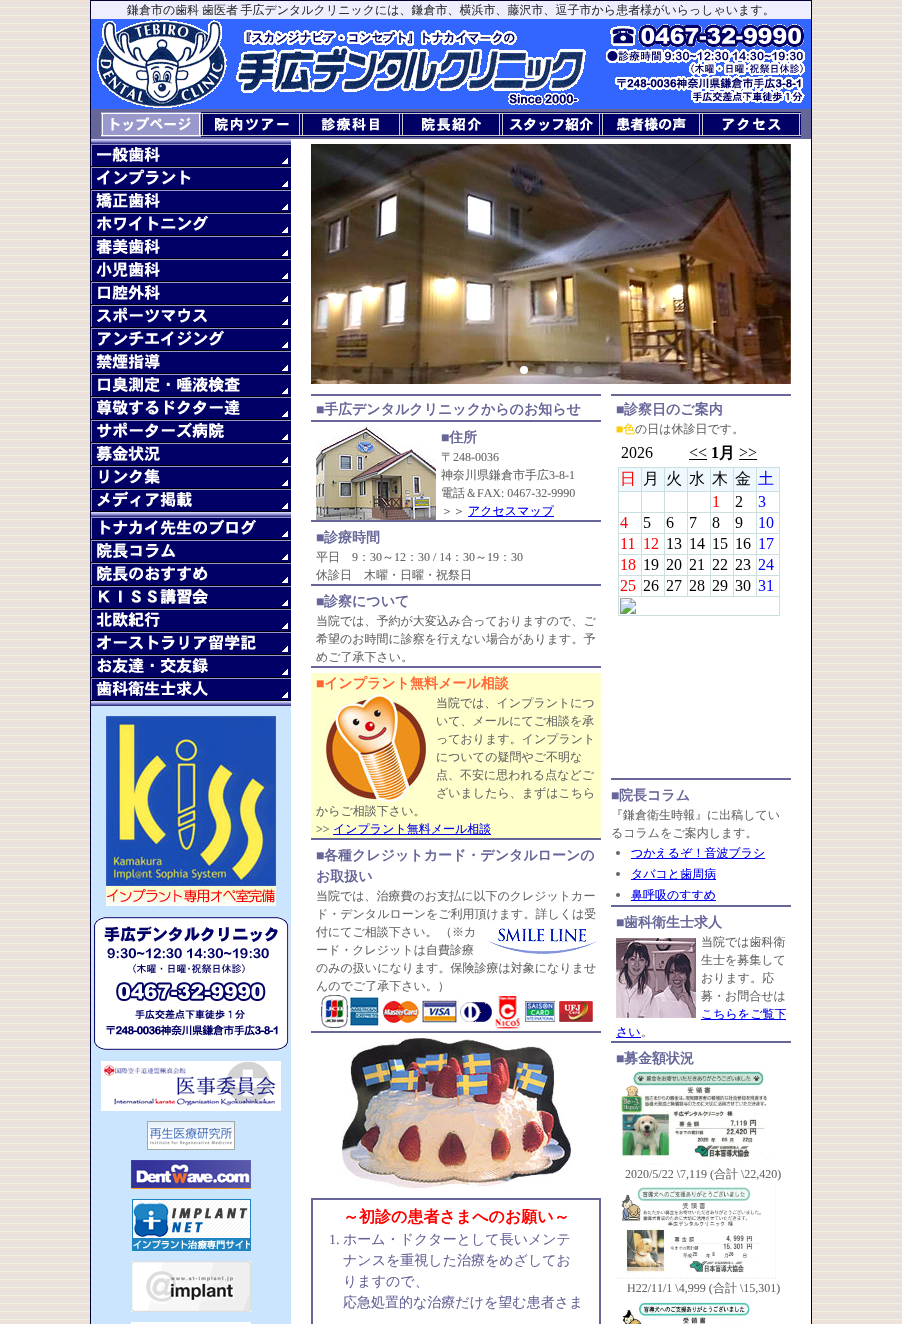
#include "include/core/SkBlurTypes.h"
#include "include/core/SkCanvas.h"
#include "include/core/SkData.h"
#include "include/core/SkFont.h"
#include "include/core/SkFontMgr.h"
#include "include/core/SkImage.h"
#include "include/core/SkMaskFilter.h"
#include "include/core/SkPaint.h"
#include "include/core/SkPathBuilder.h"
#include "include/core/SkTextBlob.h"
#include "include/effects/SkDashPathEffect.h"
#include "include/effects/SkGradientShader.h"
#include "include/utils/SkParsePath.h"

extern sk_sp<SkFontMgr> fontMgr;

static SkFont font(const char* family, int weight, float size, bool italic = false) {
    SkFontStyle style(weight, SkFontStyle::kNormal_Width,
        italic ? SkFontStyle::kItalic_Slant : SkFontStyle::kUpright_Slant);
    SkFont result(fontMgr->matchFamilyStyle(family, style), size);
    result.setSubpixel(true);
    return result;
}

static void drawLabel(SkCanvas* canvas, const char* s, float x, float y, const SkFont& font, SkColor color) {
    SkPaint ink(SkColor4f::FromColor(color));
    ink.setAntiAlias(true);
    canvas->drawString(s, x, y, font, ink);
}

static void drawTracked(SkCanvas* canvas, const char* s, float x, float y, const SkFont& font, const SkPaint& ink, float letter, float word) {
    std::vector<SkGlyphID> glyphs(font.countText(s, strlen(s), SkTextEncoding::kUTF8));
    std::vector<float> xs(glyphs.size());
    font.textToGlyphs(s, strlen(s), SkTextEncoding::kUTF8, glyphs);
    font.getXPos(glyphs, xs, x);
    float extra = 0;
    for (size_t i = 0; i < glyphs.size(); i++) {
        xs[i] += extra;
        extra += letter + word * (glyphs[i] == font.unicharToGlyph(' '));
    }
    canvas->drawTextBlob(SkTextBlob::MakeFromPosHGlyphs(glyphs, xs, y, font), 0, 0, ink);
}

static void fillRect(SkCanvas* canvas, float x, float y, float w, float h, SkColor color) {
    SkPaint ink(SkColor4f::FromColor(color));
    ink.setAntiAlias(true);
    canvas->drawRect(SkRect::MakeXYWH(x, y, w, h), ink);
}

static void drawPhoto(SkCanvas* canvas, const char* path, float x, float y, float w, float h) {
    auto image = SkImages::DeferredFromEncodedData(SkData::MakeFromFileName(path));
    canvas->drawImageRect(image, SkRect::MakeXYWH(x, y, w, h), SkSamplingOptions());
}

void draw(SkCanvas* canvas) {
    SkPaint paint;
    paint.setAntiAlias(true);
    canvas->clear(0xFFFFFFFF);
    drawPhoto(canvas, "assets/img1.png", 0, 0, 902, 1324);
    fillRect(canvas, 291, 139, 520, 1185, 0xFFFFFFFF);
    paint.setStroke(true);
    paint.setStrokeWidth(1);
    paint.setColor(0xFF000033);
    canvas->drawRect(SkRect::MakeXYWH(90.5f, 0.5f, 721, 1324), paint);
    fillRect(canvas, 91, 19, 720, 90, 0xFF3366FF);
    fillRect(canvas, 91, 1, 720, 18, 0xFFEEEEFF);
    SkFont font1 = font("WenQuanYi Zen Hei", 500, 12);
    paint.setStroke(false);
    paint.setColor(0xFF333333);
    drawTracked(canvas, "鎌倉市の歯科 歯医者 手広デンタルクリニックには、鎌倉市、横浜市、藤沢市、逗子市から患者様がいらっしゃいます。", 127, 14, font1, paint, 0, -1);
    drawPhoto(canvas, "assets/img2.png", 97, 20, 489, 88);
    drawPhoto(canvas, "assets/img3.png", 610, 24, 194, 23);
    drawPhoto(canvas, "assets/img4.png", 606, 49, 199, 54);
    fillRect(canvas, 91, 109, 720, 30, 0xFF666699);
    drawPhoto(canvas, "assets/img5.png", 101, 112, 100, 25);
    drawPhoto(canvas, "assets/img6.png", 201, 112, 100, 25);
    drawPhoto(canvas, "assets/img7.png", 301, 112, 100, 25);
    drawPhoto(canvas, "assets/img8.png", 401, 112, 100, 25);
    drawPhoto(canvas, "assets/img9.png", 501, 112, 100, 25);
    drawPhoto(canvas, "assets/img10.png", 601, 112, 100, 25);
    drawPhoto(canvas, "assets/img11.png", 701, 112, 100, 25);
    fillRect(canvas, 91, 706, 200, 618, 0xFFCCE5FF);
    drawPhoto(canvas, "assets/img12.png", 91, 139, 200, 5);
    drawPhoto(canvas, "assets/img13.png", 91, 144, 200, 23);
    drawPhoto(canvas, "assets/img14.png", 91, 167, 200, 23);
    drawPhoto(canvas, "assets/img15.png", 91, 190, 200, 23);
    drawPhoto(canvas, "assets/img16.png", 91, 213, 200, 23);
    drawPhoto(canvas, "assets/img17.png", 91, 236, 200, 23);
    drawPhoto(canvas, "assets/img18.png", 91, 259, 200, 23);
    drawPhoto(canvas, "assets/img19.png", 91, 282, 200, 23);
    drawPhoto(canvas, "assets/img20.png", 91, 305, 200, 23);
    drawPhoto(canvas, "assets/img21.png", 91, 328, 200, 23);
    drawPhoto(canvas, "assets/img22.png", 91, 351, 200, 23);
    drawPhoto(canvas, "assets/img23.png", 91, 374, 200, 23);
    drawPhoto(canvas, "assets/img24.png", 91, 397, 200, 23);
    drawPhoto(canvas, "assets/img25.png", 91, 420, 200, 23);
    drawPhoto(canvas, "assets/img26.png", 91, 443, 200, 23);
    drawPhoto(canvas, "assets/img27.png", 91, 466, 200, 23);
    drawPhoto(canvas, "assets/img28.png", 91, 489, 200, 23);
    drawPhoto(canvas, "assets/img12.png", 91, 512, 200, 5);
    drawPhoto(canvas, "assets/img29.png", 91, 517, 200, 23);
    drawPhoto(canvas, "assets/img30.png", 91, 540, 200, 23);
    drawPhoto(canvas, "assets/img31.png", 91, 563, 200, 23);
    drawPhoto(canvas, "assets/img32.png", 91, 586, 200, 23);
    drawPhoto(canvas, "assets/img33.png", 91, 609, 200, 23);
    drawPhoto(canvas, "assets/img34.png", 91, 632, 200, 23);
    drawPhoto(canvas, "assets/img35.png", 91, 655, 200, 23);
    drawPhoto(canvas, "assets/img36.png", 91, 678, 200, 23);
    drawPhoto(canvas, "assets/img12.png", 91, 701, 200, 5);
    drawPhoto(canvas, "assets/img37.png", 106, 716, 170, 190);
    drawPhoto(canvas, "assets/img38.png", 94, 917, 195, 133);
    drawPhoto(canvas, "assets/img39.png", 101, 1061, 180, 50);
    drawPhoto(canvas, "assets/img40.png", 147, 1121, 88, 29);
    drawPhoto(canvas, "assets/img41.png", 131, 1160, 120, 29);
    drawPhoto(canvas, "assets/img42.png", 132, 1199, 119, 52);
    drawPhoto(canvas, "assets/img43.png", 131, 1261, 120, 51);
    fillRect(canvas, 131, 1322, 120, 2, 0xFFFFFFFF);
    drawPhoto(canvas, "assets/img44.png", 311, 144, 480, 240);
    paint.setColor(0xFFFFFFFF);
    canvas->drawCircle(524, 370, 4, paint);
    paint.setColor(0x33FFFFFF);
    canvas->drawCircle(542, 370, 4, paint);
    canvas->drawCircle(560, 370, 4, paint);
    canvas->drawCircle(578, 370, 4, paint);
    fillRect(canvas, 311, 394, 290, 2, 0xFF666699);
    fillRect(canvas, 311, 420, 290, 2, 0xFF666699);
    SkFont font2 = font("Liberation Serif", 700, 14);
    drawLabel(canvas, "■", 316, 414, font2, 0xFF666699);
    SkFont font3 = font("WenQuanYi Zen Hei", 700, 14);
    drawLabel(canvas, "手広デンタルクリニックからのお知らせ", 324, 414, font3, 0xFF666699);
    fillRect(canvas, 311, 520, 290, 2, 0xFF666699);
    drawPhoto(canvas, "assets/img45.png", 316, 427, 120, 93);
    drawLabel(canvas, "■", 441, 442, font2, 0xFF666699);
    drawLabel(canvas, "住所", 449, 442, font3, 0xFF666699);
    drawLabel(canvas, "〒", 441, 461, font1, 0xFF666666);
    SkFont font4 = font("Liberation Serif", 400, 12);
    drawLabel(canvas, "248-0036", 453, 461, font4, 0xFF666666);
    drawLabel(canvas, "神奈川県鎌倉市手広", 441, 479, font1, 0xFF666666);
    drawLabel(canvas, "3-8-1", 549, 479, font4, 0xFF666666);
    drawLabel(canvas, "電話＆", 441, 497, font1, 0xFF666666);
    drawLabel(canvas, "FAX: 0467-32-9990", 477, 497, font4, 0xFF666666);
    drawLabel(canvas, "＞＞", 441, 515, font1, 0xFF666666);
    fillRect(canvas, 468, 516, 86, 1, 0xFF0000EE);
    drawLabel(canvas, "アクセスマップ", 468, 515, font1, 0xFF0000EE);
    fillRect(canvas, 311, 584, 290, 2, 0xFF666699);
    drawLabel(canvas, "■", 316, 542, font2, 0xFF666699);
    drawLabel(canvas, "診療時間", 324, 542, font3, 0xFF666699);
    drawLabel(canvas, "平日", 316, 561, font1, 0xFF666666);
    drawLabel(canvas, "9", 352, 561, font4, 0xFF666666);
    drawLabel(canvas, "：", 358, 561, font1, 0xFF666666);
    drawLabel(canvas, "30", 370, 561, font4, 0xFF666666);
    drawLabel(canvas, "～", 382, 561, font1, 0xFF666666);
    drawLabel(canvas, "12", 394, 561, font4, 0xFF666666);
    drawLabel(canvas, "：", 406, 561, font1, 0xFF666666);
    drawLabel(canvas, "30 / 14", 418, 561, font4, 0xFF666666);
    drawLabel(canvas, "：", 451, 561, font1, 0xFF666666);
    drawLabel(canvas, "30", 463, 561, font4, 0xFF666666);
    drawLabel(canvas, "～", 475, 561, font1, 0xFF666666);
    drawLabel(canvas, "19", 487, 561, font4, 0xFF666666);
    drawLabel(canvas, "：", 499, 561, font1, 0xFF666666);
    drawLabel(canvas, "30", 511, 561, font4, 0xFF666666);
    drawLabel(canvas, "休診日　木曜・日曜・祝祭日", 316, 579, font1, 0xFF666666);
    fillRect(canvas, 311, 666, 290, 2, 0xFF666699);
    drawLabel(canvas, "■", 316, 606, font2, 0xFF666699);
    drawLabel(canvas, "診察について", 324, 606, font3, 0xFF666699);
    drawLabel(canvas, "当院では、予約が大変込み合っておりますので、ご", 316, 625, font1, 0xFF666666);
    drawLabel(canvas, "希望のお時間に診察を行えない場合があります。予", 316, 643, font1, 0xFF666666);
    drawLabel(canvas, "めご了承下さい。", 316, 661, font1, 0xFF666666);
    fillRect(canvas, 311, 673, 290, 165, 0xFFFFFFCC);
    fillRect(canvas, 311, 838, 290, 2, 0xFF666699);
    drawLabel(canvas, "■", 316, 688, font2, 0xFFFF6633);
    drawLabel(canvas, "インプラント無料メール相談", 324, 688, font3, 0xFFFF6633);
    drawPhoto(canvas, "assets/img46.png", 326, 694, 100, 108);
    drawLabel(canvas, "当院では、インプラントにつ", 436, 707, font1, 0xFF666666);
    drawLabel(canvas, "いて、メールにてご相談を承", 436, 725, font1, 0xFF666666);
    drawLabel(canvas, "っております。インプラント", 436, 743, font1, 0xFF666666);
    drawLabel(canvas, "についての疑問やご不明な", 436, 761, font1, 0xFF666666);
    drawLabel(canvas, "点、不安に思われる点などご", 436, 779, font1, 0xFF666666);
    drawLabel(canvas, "ざいましたら、まずはこちら", 436, 797, font1, 0xFF666666);
    drawLabel(canvas, "からご相談下さい。", 316, 815, font1, 0xFF666666);
    drawLabel(canvas, ">>", 316, 833, font4, 0xFF666666);
    fillRect(canvas, 333, 834, 158, 1, 0xFF0000EE);
    drawLabel(canvas, "インプラント無料メール相談", 333, 833, font1, 0xFF0000EE);
    fillRect(canvas, 311, 1031, 290, 2, 0xFF666699);
    drawLabel(canvas, "■", 316, 860, font2, 0xFF666699);
    drawLabel(canvas, "各種クレジットカード・デンタルローンの", 324, 860, font3, 0xFF666699);
    drawLabel(canvas, "お取扱い", 316, 881, font3, 0xFF666699);
    drawLabel(canvas, "当院では、治療費のお支払に以下のクレジットカー", 316, 900, font1, 0xFF666666);
    drawLabel(canvas, "ド・デンタルローンをご利用頂けます。詳しくは受", 316, 918, font1, 0xFF666666);
    drawLabel(canvas, "付にてご相談下さい。", 316, 936, font1, 0xFF666666);
    drawLabel(canvas, "（※カ", 440, 936, font1, 0xFF666666);
    drawPhoto(canvas, "assets/img47.png", 488, 928, 109, 26);
    drawLabel(canvas, "ード・クレジットは自費診療", 316, 954, font1, 0xFF666666);
    drawLabel(canvas, "のみの扱いになります。保険診療は対象になりませ", 316, 972, font1, 0xFF666666);
    drawLabel(canvas, "んのでご了承下さい。）", 316, 990, font1, 0xFF666666);
    drawPhoto(canvas, "assets/img48.png", 321, 995, 272, 34);
    drawPhoto(canvas, "assets/img49.png", 342, 1038, 229, 150);
    paint.setStroke(true);
    paint.setStrokeWidth(2);
    paint.setColor(0xFF666699);
    canvas->drawRect(SkRect::MakeXYWH(312, 1199, 288, 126), paint);
    SkFont font5 = font("WenQuanYi Zen Hei", 700, 16);
    drawLabel(canvas, "～初診の患者さまへのお願い～", 343, 1222, font5, 0xFFFF0000);
    SkFont font6 = font("Liberation Serif", 400, 14);
    drawLabel(canvas, "1.", 329, 1244, font6, 0xFF666699);
    SkFont font7 = font("WenQuanYi Zen Hei", 500, 14);
    drawLabel(canvas, "ホーム・ドクターとして長いメンテ", 343, 1244, font7, 0xFF666699);
    drawLabel(canvas, "ナンスを重視した治療をめざしてお", 343, 1265, font7, 0xFF666699);
    drawLabel(canvas, "りますので、", 343, 1286, font7, 0xFF666699);
    drawLabel(canvas, "応急処置的な治療だけを望む患者さま", 343, 1307, font7, 0xFF666699);
    fillRect(canvas, 611, 394, 180, 2, 0xFF666699);
    fillRect(canvas, 611, 778, 180, 2, 0xFF666699);
    drawLabel(canvas, "■", 616, 414, font2, 0xFF666699);
    drawLabel(canvas, "診察日のご案内", 624, 414, font3, 0xFF666699);
    drawLabel(canvas, "■", 616, 433, font4, 0xFFFFCC00);
    drawLabel(canvas, "色", 623, 433, font1, 0xFFFFCC00);
    drawLabel(canvas, "の日は休診日です。", 635, 433, font1, 0xFF666666);
    drawPhoto(canvas, "assets/img50.png", 618, 445, 162, 171);
    drawLabel(canvas, "■", 611, 800, font2, 0xFF666699);
    drawLabel(canvas, "院長コラム", 619, 800, font3, 0xFF666699);
    drawLabel(canvas, "『鎌倉衛生時報』に出稿してい", 611, 819, font1, 0xFF666666);
    drawLabel(canvas, "るコラムをご案内します。", 611, 837, font1, 0xFF666666);
    fillRect(canvas, 611, 905, 180, 2, 0xFF666699);
    paint.setStroke(false);
    paint.setColor(0xFF666666);
    canvas->drawCircle(618, 853, 2, paint);
    fillRect(canvas, 631, 858, 134, 1, 0xFF0000EE);
    drawLabel(canvas, "つかえるぞ！音波ブラシ", 631, 857, font1, 0xFF0000EE);
    canvas->drawCircle(618, 874, 2, paint);
    fillRect(canvas, 631, 879, 85, 1, 0xFF0000EE);
    drawLabel(canvas, "タバコと歯周病", 631, 878, font1, 0xFF0000EE);
    canvas->drawCircle(618, 895, 2, paint);
    fillRect(canvas, 631, 900, 85, 1, 0xFF0000EE);
    drawLabel(canvas, "鼻呼吸のすすめ", 631, 899, font1, 0xFF0000EE);
    fillRect(canvas, 611, 1041, 180, 2, 0xFF666699);
    drawLabel(canvas, "■", 616, 927, font2, 0xFF666699);
    drawLabel(canvas, "歯科衛生士求人", 624, 927, font3, 0xFF666699);
    drawPhoto(canvas, "assets/img51.png", 616, 938, 80, 80);
    drawLabel(canvas, "当院では歯科衛", 701, 946, font1, 0xFF666666);
    drawLabel(canvas, "生士を募集して", 701, 964, font1, 0xFF666666);
    drawLabel(canvas, "おります。応", 701, 982, font1, 0xFF666666);
    drawLabel(canvas, "募・お問合せは", 701, 1000, font1, 0xFF666666);
    fillRect(canvas, 701, 1019, 85, 1, 0xFF0000EE);
    drawLabel(canvas, "こちらをご覧下", 701, 1018, font1, 0xFF0000EE);
    fillRect(canvas, 616, 1037, 25, 1, 0xFF0000EE);
    drawLabel(canvas, "さい", 616, 1036, font1, 0xFF0000EE);
    drawLabel(canvas, "。", 641, 1036, font1, 0xFF666666);
    drawLabel(canvas, "■", 616, 1063, font2, 0xFF666699);
    drawLabel(canvas, "募金額状況", 624, 1063, font3, 0xFF666699);
    drawPhoto(canvas, "assets/img52.png", 620, 1069, 153, 96);
    drawLabel(canvas, "2020/5/22 \\7,119 (", 625, 1178, font4, 0xFF666666);
    drawLabel(canvas, "合計", 714, 1178, font1, 0xFF666666);
    drawLabel(canvas, "\\22,420)", 741, 1178, font4, 0xFF666666);
    drawPhoto(canvas, "assets/img53.png", 616, 1183, 160, 96);
    drawLabel(canvas, "H22/11/1 \\4,999 (", 627, 1292, font4, 0xFF666666);
    drawLabel(canvas, "合計", 713, 1292, font1, 0xFF666666);
    drawLabel(canvas, "\\15,301)", 740, 1292, font4, 0xFF666666);
    drawPhoto(canvas, "assets/img54.png", 621, 1302, 131, 22);
}
